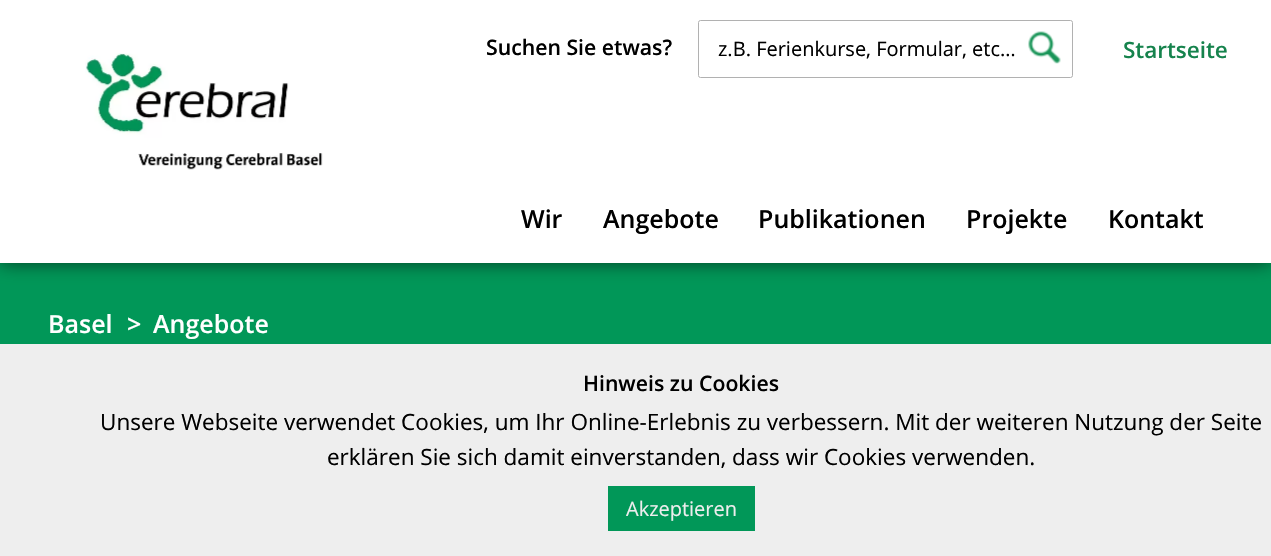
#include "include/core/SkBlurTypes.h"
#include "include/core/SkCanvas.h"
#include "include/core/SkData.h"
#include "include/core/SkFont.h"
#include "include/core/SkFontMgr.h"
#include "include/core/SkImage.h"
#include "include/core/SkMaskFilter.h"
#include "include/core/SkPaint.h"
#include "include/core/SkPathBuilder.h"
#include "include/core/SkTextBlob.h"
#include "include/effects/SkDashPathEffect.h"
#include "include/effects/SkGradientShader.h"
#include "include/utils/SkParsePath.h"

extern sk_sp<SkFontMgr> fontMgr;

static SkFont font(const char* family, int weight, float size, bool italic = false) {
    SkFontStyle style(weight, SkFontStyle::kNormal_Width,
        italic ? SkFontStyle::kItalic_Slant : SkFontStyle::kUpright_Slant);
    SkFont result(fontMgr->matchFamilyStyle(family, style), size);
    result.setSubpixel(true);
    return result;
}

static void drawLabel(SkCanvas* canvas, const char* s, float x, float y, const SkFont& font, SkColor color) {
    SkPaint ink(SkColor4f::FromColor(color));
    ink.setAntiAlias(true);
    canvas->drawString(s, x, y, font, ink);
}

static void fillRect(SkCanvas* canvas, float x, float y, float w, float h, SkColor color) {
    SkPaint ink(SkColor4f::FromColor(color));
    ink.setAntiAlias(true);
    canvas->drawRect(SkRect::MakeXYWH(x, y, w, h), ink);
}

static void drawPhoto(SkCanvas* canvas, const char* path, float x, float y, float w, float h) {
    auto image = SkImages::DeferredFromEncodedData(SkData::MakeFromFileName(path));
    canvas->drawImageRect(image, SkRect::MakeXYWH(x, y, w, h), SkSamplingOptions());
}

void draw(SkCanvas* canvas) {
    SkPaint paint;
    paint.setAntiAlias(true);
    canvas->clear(0xFF019758);
    paint.setColor(0x99000000);
    paint.setMaskFilter(SkMaskFilter::MakeBlur(kNormal_SkBlurStyle, 9));
    canvas->drawRect(SkRect::MakeXYWH(0, 0, 1271, 263), paint);
    paint.setMaskFilter(nullptr);
    fillRect(canvas, 0, 0, 1271, 263, 0xFFFFFFFF);
    SkFont font1 = font("Open Sans", 600, 21.25f);
    drawLabel(canvas, "Suchen Sie etwas?", 486, 55, font1, 0xFF000000);
    paint.setStroke(true);
    paint.setStrokeWidth(1);
    paint.setColor(0xFFB1B1B1);
    canvas->drawRoundRect(SkRect::MakeXYWH(698.5f, 20.5f, 374, 57), 2, 2, paint);
    SkFont font2 = font("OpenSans", 400, 20);
    drawLabel(canvas, "z.B. Ferienkurse, Formular, etc…", 718, 56, font2, 0xFF000000);
    drawPhoto(canvas, "assets/img1.png", 1028, 31, 33, 33);
    SkFont font3 = font("Open Sans", 600, 22.5f);
    drawLabel(canvas, "Startseite", 1123, 58, font3, 0xFF16834D);
    drawPhoto(canvas, "assets/img2.png", 85, 53, 238, 117);
    SkFont font4 = font("Open Sans", 600, 25);
    drawLabel(canvas, "Wir", 521, 228, font4, 0xFF000000);
    drawLabel(canvas, "Angebote", 603, 228, font4, 0xFF000000);
    drawLabel(canvas, "Publikationen", 758, 228, font4, 0xFF000000);
    drawLabel(canvas, "Projekte", 966, 228, font4, 0xFF000000);
    drawLabel(canvas, "Kontakt", 1108, 228, font4, 0xFF000000);
    drawLabel(canvas, "Basel", 48, 333, font4, 0xFFFFFFFF);
    drawLabel(canvas, ">", 127, 333, font4, 0xFFFFFFFF);
    drawLabel(canvas, "Angebote", 153, 333, font4, 0xFFFFFFFF);
    fillRect(canvas, 0, 344, 1271, 212, 0xFFEEEEEE);
    drawLabel(canvas, "Hinweis zu Cookies", 583, 391, font1, 0xFF000000);
    SkFont font5 = font("OpenSans", 400, 22.5f);
    drawLabel(canvas, "Unsere Webseite verwendet Cookies, um Ihr Online-Erlebnis zu verbessern. Mit der weiteren Nutzung der Seite", 100, 430, font5, 0xFF000000);
    drawLabel(canvas, "erklären Sie sich damit einverstanden, dass wir Cookies verwenden.", 327, 465, font5, 0xFF000000);
    fillRect(canvas, 608, 486, 147, 45, 0xFF019758);
    drawLabel(canvas, "Akzeptieren", 626, 516, font2, 0xFFEEEEEE);
}
